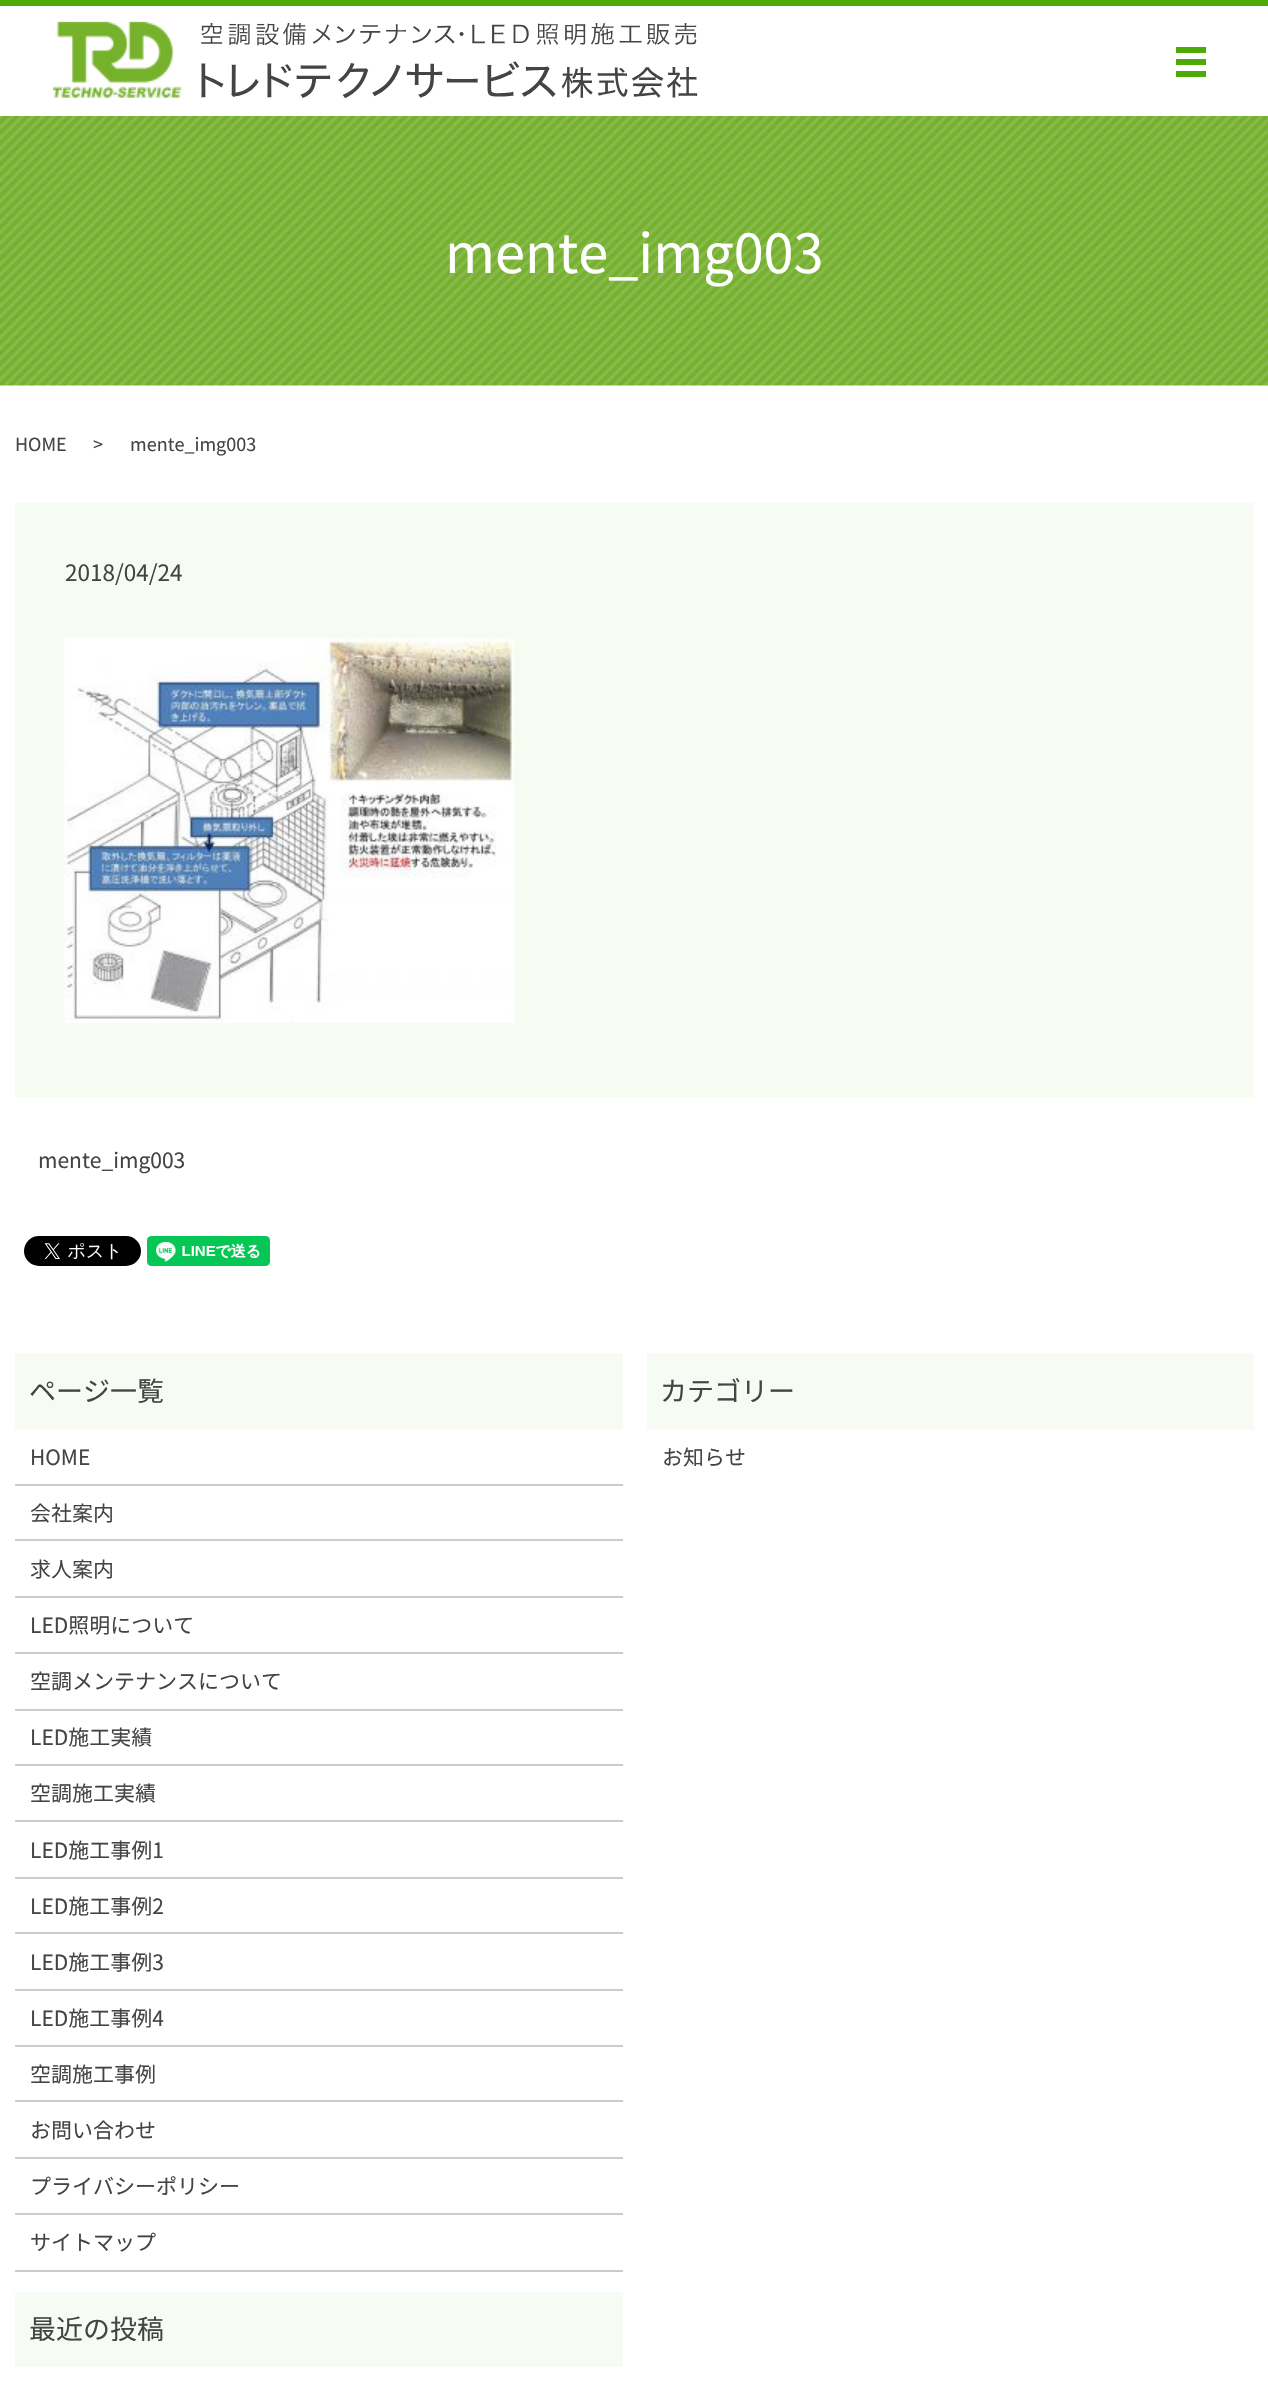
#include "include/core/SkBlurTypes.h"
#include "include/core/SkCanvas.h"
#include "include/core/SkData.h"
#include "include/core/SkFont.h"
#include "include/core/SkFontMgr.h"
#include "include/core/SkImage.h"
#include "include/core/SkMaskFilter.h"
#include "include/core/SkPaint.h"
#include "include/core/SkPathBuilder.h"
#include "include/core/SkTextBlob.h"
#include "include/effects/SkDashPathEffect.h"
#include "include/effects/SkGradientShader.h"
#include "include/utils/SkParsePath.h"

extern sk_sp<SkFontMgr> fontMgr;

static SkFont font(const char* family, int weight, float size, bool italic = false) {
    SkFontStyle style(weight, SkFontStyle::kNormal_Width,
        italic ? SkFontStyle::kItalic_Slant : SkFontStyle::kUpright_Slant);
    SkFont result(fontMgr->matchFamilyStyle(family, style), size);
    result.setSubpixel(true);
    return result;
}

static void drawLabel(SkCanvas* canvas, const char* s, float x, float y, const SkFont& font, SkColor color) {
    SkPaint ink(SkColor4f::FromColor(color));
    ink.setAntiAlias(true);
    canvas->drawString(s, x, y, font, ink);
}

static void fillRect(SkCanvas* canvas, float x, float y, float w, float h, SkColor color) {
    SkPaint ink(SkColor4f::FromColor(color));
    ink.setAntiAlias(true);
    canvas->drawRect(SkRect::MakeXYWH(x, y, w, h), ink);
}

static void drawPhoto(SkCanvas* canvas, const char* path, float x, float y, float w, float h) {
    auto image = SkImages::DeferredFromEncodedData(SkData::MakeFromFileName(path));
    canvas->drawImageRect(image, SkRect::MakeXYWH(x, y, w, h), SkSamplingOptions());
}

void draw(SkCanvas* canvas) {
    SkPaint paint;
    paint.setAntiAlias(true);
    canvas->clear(0xFFFFFFFF);
    fillRect(canvas, 0, 0, 1268, 6, 0xFF4EAA07);
    drawPhoto(canvas, "assets/img1.png", 52, 21, 646, 78);
    fillRect(canvas, 1176, 47, 30, 6, 0xFF4EAA07);
    fillRect(canvas, 1176, 59, 30, 6, 0xFF4EAA07);
    fillRect(canvas, 1176, 71, 30, 6, 0xFF4EAA07);
    drawPhoto(canvas, "assets/img2.png", 0, 116, 1268, 270);
    SkFont font1 = font("Noto Sans JP", 400, 54);
    drawLabel(canvas, "mente_img003", 445, 273, font1, 0xFFFFFFFF);
    SkFont font2 = font("Noto Sans JP", 400, 18);
    drawLabel(canvas, "HOME", 15, 451, font2, 0xFF444444);
    drawLabel(canvas, ">", 93, 451, font2, 0xFF444444);
    drawLabel(canvas, "mente_img003", 130, 451, font2, 0xFF444444);
    fillRect(canvas, 15, 503, 1239, 594, 0xFFF7FCF3);
    SkFont font3 = font("Noto Sans JP", 400, 22.5f);
    drawLabel(canvas, "2018/04/24", 65, 581, font3, 0xFF444444);
    drawPhoto(canvas, "assets/img3.png", 64, 637, 451, 386);
    SkFont font4 = font("Noto Sans JP", 400, 21);
    drawLabel(canvas, "mente_img003", 38, 1168, font4, 0xFF444444);
    drawPhoto(canvas, "assets/img4.png", 24, 1236, 117, 30);
    drawPhoto(canvas, "assets/img5.png", 147, 1236, 123, 30);
    fillRect(canvas, 15, 1353, 608, 77, 0xFFF6FBF3);
    SkFont font5 = font("Noto Sans JP", 400, 27);
    drawLabel(canvas, "ページ一覧", 29, 1401, font5, 0xFF444444);
    fillRect(canvas, 15, 1484, 608, 2, 0xFFCCCCCC);
    drawLabel(canvas, "HOME", 30, 1465, font4, 0xFF444444);
    fillRect(canvas, 15, 1539, 608, 2, 0xFFCCCCCC);
    drawLabel(canvas, "会社案内", 30, 1521, font4, 0xFF444444);
    fillRect(canvas, 15, 1596, 608, 2, 0xFFCCCCCC);
    drawLabel(canvas, "求人案内", 30, 1577, font4, 0xFF444444);
    fillRect(canvas, 15, 1652, 608, 2, 0xFFCCCCCC);
    drawLabel(canvas, "LED照明について", 30, 1633, font4, 0xFF444444);
    fillRect(canvas, 15, 1709, 608, 2, 0xFFCCCCCC);
    drawLabel(canvas, "空調メンテナンスについて", 30, 1689, font4, 0xFF444444);
    fillRect(canvas, 15, 1764, 608, 2, 0xFFCCCCCC);
    drawLabel(canvas, "LED施工実績", 30, 1745, font4, 0xFF444444);
    fillRect(canvas, 15, 1820, 608, 2, 0xFFCCCCCC);
    drawLabel(canvas, "空調施工実績", 30, 1801, font4, 0xFF444444);
    fillRect(canvas, 15, 1877, 608, 2, 0xFFCCCCCC);
    drawLabel(canvas, "LED施工事例1", 30, 1858, font4, 0xFF444444);
    fillRect(canvas, 15, 1932, 608, 2, 0xFFCCCCCC);
    drawLabel(canvas, "LED施工事例2", 30, 1914, font4, 0xFF444444);
    fillRect(canvas, 15, 1989, 608, 2, 0xFFCCCCCC);
    drawLabel(canvas, "LED施工事例3", 30, 1970, font4, 0xFF444444);
    fillRect(canvas, 15, 2045, 608, 2, 0xFFCCCCCC);
    drawLabel(canvas, "LED施工事例4", 30, 2026, font4, 0xFF444444);
    fillRect(canvas, 15, 2100, 608, 2, 0xFFCCCCCC);
    drawLabel(canvas, "空調施工事例", 30, 2082, font4, 0xFF444444);
    fillRect(canvas, 15, 2157, 608, 2, 0xFFCCCCCC);
    drawLabel(canvas, "お問い合わせ", 30, 2138, font4, 0xFF444444);
    fillRect(canvas, 15, 2213, 608, 2, 0xFFCCCCCC);
    drawLabel(canvas, "プライバシーポリシー", 30, 2194, font4, 0xFF444444);
    fillRect(canvas, 15, 2270, 608, 2, 0xFFCCCCCC);
    drawLabel(canvas, "サイトマップ", 30, 2250, font4, 0xFF444444);
    fillRect(canvas, 647, 1353, 607, 77, 0xFFF6FBF3);
    drawLabel(canvas, "カテゴリー", 660, 1401, font5, 0xFF444444);
    drawLabel(canvas, "お知らせ", 662, 1465, font4, 0xFF444444);
    fillRect(canvas, 15, 2292, 608, 75, 0xFFF6FBF3);
    drawLabel(canvas, "最近の投稿", 29, 2339, font5, 0xFF444444);
}
